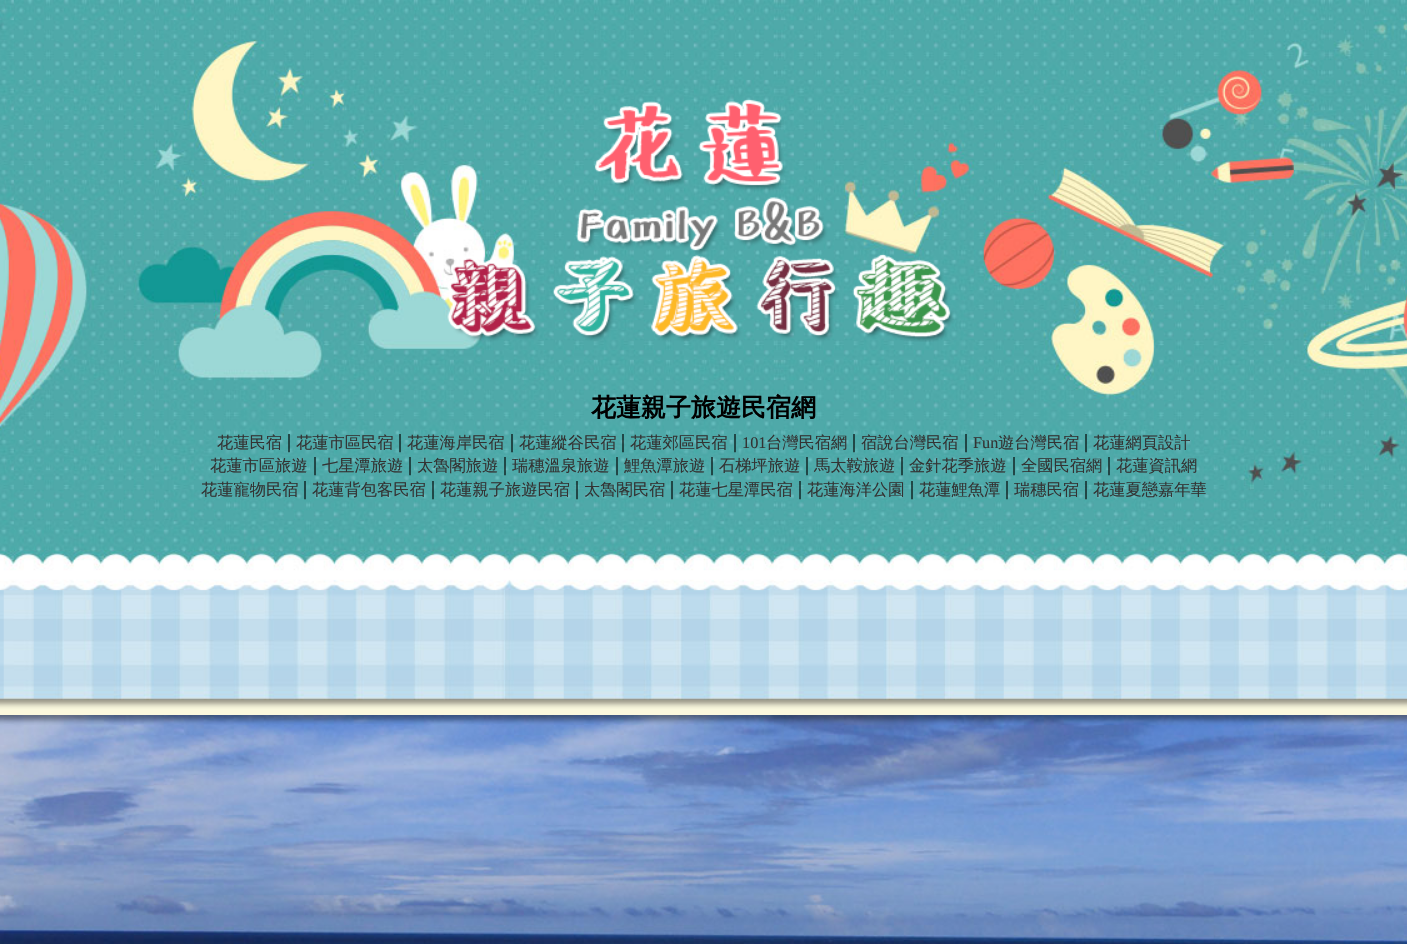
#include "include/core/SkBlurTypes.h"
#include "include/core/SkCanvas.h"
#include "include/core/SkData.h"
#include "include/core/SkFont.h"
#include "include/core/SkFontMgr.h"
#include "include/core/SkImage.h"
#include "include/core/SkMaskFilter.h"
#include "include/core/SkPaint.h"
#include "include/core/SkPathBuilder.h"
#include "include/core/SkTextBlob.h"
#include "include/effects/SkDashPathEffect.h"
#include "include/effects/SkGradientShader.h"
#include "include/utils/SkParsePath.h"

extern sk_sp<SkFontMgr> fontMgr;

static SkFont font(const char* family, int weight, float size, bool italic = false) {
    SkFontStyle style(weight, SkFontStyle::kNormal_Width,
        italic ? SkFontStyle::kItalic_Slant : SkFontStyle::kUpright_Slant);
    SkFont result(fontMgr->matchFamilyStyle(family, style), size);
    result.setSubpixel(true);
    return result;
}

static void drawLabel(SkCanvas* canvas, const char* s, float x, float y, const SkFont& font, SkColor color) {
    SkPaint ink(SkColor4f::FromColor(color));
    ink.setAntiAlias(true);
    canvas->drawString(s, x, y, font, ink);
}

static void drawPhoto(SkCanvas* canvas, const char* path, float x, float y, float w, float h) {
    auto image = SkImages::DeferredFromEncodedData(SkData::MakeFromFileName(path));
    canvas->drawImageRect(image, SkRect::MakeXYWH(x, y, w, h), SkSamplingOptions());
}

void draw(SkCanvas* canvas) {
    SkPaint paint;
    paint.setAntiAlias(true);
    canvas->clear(0xFFFFFFFF);
    drawPhoto(canvas, "assets/img1.png", 0, 0, 1407, 715);
    drawPhoto(canvas, "assets/img2.png", 447, 99, 507, 243);
    SkFont font1 = font("WenQuanYi Zen Hei", 700, 25);
    drawLabel(canvas, "花蓮親子旅遊民宿網", 591, 416, font1, 0xFF000000);
    SkFont font2 = font("WenQuanYi Zen Hei", 500, 16.25f);
    drawLabel(canvas, "花蓮民宿", 217, 448, font2, 0xFF333333);
    SkFont font3 = font("Liberation Serif", 400, 20);
    drawLabel(canvas, "|", 287, 448, font3, 0xFF000000);
    drawLabel(canvas, "花蓮市區民宿", 296, 448, font2, 0xFF333333);
    drawLabel(canvas, "|", 398, 448, font3, 0xFF000000);
    drawLabel(canvas, "花蓮海岸民宿", 407, 448, font2, 0xFF333333);
    drawLabel(canvas, "|", 510, 448, font3, 0xFF000000);
    drawLabel(canvas, "花蓮縱谷民宿", 519, 448, font2, 0xFF333333);
    drawLabel(canvas, "|", 621, 448, font3, 0xFF000000);
    drawLabel(canvas, "花蓮郊區民宿", 630, 448, font2, 0xFF333333);
    drawLabel(canvas, "|", 733, 448, font3, 0xFF000000);
    SkFont font4 = font("Liberation Serif", 400, 16.25f);
    drawLabel(canvas, "101", 742, 448, font4, 0xFF333333);
    drawLabel(canvas, "台灣民宿網", 766, 448, font2, 0xFF333333);
    drawLabel(canvas, "|", 852, 448, font3, 0xFF000000);
    drawLabel(canvas, "宿說台灣民宿", 861, 448, font2, 0xFF333333);
    drawLabel(canvas, "|", 964, 448, font3, 0xFF000000);
    drawLabel(canvas, "Fun", 973, 448, font4, 0xFF333333);
    drawLabel(canvas, "遊台灣民宿", 998, 448, font2, 0xFF333333);
    drawLabel(canvas, "|", 1084, 448, font3, 0xFF000000);
    drawLabel(canvas, "花蓮網頁設計", 1093, 448, font2, 0xFF333333);
    drawLabel(canvas, "花蓮市區旅遊", 210, 471, font2, 0xFF333333);
    drawLabel(canvas, "|", 313, 471, font3, 0xFF000000);
    drawLabel(canvas, "七星潭旅遊", 322, 471, font2, 0xFF333333);
    drawLabel(canvas, "|", 408, 471, font3, 0xFF000000);
    drawLabel(canvas, "太魯閣旅遊", 417, 471, font2, 0xFF333333);
    drawLabel(canvas, "|", 503, 471, font3, 0xFF000000);
    drawLabel(canvas, "瑞穗溫泉旅遊", 512, 471, font2, 0xFF333333);
    drawLabel(canvas, "|", 615, 471, font3, 0xFF000000);
    drawLabel(canvas, "鯉魚潭旅遊", 624, 471, font2, 0xFF333333);
    drawLabel(canvas, "|", 710, 471, font3, 0xFF000000);
    drawLabel(canvas, "石梯坪旅遊", 719, 471, font2, 0xFF333333);
    drawLabel(canvas, "|", 805, 471, font3, 0xFF000000);
    drawLabel(canvas, "馬太鞍旅遊", 814, 471, font2, 0xFF333333);
    drawLabel(canvas, "|", 900, 471, font3, 0xFF000000);
    drawLabel(canvas, "金針花季旅遊", 909, 471, font2, 0xFF333333);
    drawLabel(canvas, "|", 1012, 471, font3, 0xFF000000);
    drawLabel(canvas, "全國民宿網", 1021, 471, font2, 0xFF333333);
    drawLabel(canvas, "|", 1107, 471, font3, 0xFF000000);
    drawLabel(canvas, "花蓮資訊網", 1116, 471, font2, 0xFF333333);
    drawLabel(canvas, "花蓮寵物民宿", 201, 495, font2, 0xFF333333);
    drawLabel(canvas, "|", 303, 495, font3, 0xFF000000);
    drawLabel(canvas, "花蓮背包客民宿", 312, 495, font2, 0xFF333333);
    drawLabel(canvas, "|", 431, 495, font3, 0xFF000000);
    drawLabel(canvas, "花蓮親子旅遊民宿", 440, 495, font2, 0xFF333333);
    drawLabel(canvas, "|", 575, 495, font3, 0xFF000000);
    drawLabel(canvas, "太魯閣民宿", 584, 495, font2, 0xFF333333);
    drawLabel(canvas, "|", 670, 495, font3, 0xFF000000);
    drawLabel(canvas, "花蓮七星潭民宿", 679, 495, font2, 0xFF333333);
    drawLabel(canvas, "|", 798, 495, font3, 0xFF000000);
    drawLabel(canvas, "花蓮海洋公園", 807, 495, font2, 0xFF333333);
    drawLabel(canvas, "|", 910, 495, font3, 0xFF000000);
    drawLabel(canvas, "花蓮鯉魚潭", 919, 495, font2, 0xFF333333);
    drawLabel(canvas, "|", 1005, 495, font3, 0xFF000000);
    drawLabel(canvas, "瑞穗民宿", 1014, 495, font2, 0xFF333333);
    drawLabel(canvas, "|", 1084, 495, font3, 0xFF000000);
    drawLabel(canvas, "花蓮夏戀嘉年華", 1093, 495, font2, 0xFF333333);
    drawPhoto(canvas, "assets/img3.png", 0, 715, 1407, 229);
}
